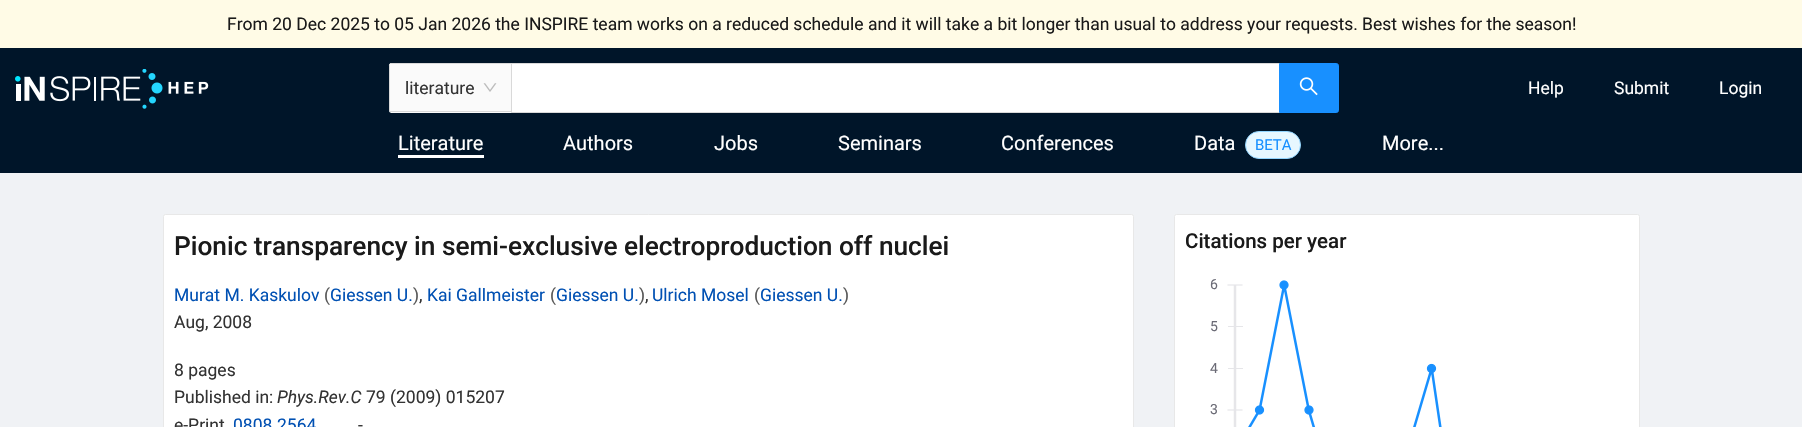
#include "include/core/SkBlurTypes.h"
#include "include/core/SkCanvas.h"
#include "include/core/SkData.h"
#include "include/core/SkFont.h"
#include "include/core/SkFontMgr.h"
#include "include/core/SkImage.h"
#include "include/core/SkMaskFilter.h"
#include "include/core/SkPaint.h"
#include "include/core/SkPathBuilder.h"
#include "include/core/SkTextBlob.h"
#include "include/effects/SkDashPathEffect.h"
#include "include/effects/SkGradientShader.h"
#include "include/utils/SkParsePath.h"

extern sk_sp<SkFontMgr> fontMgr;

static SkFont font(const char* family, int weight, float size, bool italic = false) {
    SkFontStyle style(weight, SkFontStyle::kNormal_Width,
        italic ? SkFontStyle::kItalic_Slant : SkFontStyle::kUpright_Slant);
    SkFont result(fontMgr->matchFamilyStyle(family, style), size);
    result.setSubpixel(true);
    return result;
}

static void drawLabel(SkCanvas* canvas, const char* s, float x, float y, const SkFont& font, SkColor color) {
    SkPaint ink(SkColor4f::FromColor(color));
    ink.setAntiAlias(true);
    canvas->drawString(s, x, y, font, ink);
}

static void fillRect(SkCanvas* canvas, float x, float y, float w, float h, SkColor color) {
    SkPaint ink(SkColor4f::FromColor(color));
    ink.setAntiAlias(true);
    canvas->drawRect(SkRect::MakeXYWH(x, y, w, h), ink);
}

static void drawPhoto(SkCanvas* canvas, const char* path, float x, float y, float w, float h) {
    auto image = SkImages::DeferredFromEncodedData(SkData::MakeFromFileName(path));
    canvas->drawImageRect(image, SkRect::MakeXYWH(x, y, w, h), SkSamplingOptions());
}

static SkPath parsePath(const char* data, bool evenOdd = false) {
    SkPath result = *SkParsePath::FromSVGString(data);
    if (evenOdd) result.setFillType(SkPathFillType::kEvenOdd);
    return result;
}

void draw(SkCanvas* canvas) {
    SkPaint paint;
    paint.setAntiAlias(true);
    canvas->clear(0xFFF0F2F5);
    fillRect(canvas, 0, 0, 1802, 48, 0xFFFFFBE6);
    SkFont font1 = font("Roboto", 400, 17.5f);
    drawLabel(canvas, "From 20 Dec 2025 to 05 Jan 2026 the INSPIRE team works on a reduced schedule and it will take a bit longer than usual to address your requests. Best wishes for the season!", 227, 30, font1, 0xFF1A1A1A);
    fillRect(canvas, 0, 48, 1802, 125, 0xFF001529);
    drawPhoto(canvas, "assets/img1.png", 15, 69, 194, 40);
    paint.setColor(0xFFFAFAFA);
    canvas->drawPath(parsePath("M391.5 63H511V113H391.5C390 113 389 112 389 110.5V65.5C389 64 390 63 391.5 63Z"), paint);
    fillRect(canvas, 390, 63, 121, 1, 0xFFD9D9D9);
    fillRect(canvas, 390, 111, 121, 1, 0xFFD9D9D9);
    fillRect(canvas, 389, 64, 1, 47, 0xFFD9D9D9);
    drawLabel(canvas, "literature", 405, 94, font1, 0xFF333333);
    drawPhoto(canvas, "assets/img2.png", 483, 83, 14, 9);
    paint.setColor(0xFFFFFFFF);
    canvas->drawRect(SkRect::MakeXYWH(511.5f, 63.5f, 768, 49), paint);
    paint.setStroke(true);
    paint.setStrokeWidth(1);
    paint.setColor(0xFFD9D9D9);
    canvas->drawRect(SkRect::MakeXYWH(511.5f, 63.5f, 768, 49), paint);
    paint.setStroke(false);
    paint.setColor(0x0A000000);
    canvas->drawPath(parsePath("M1279 112V115H1327C1343 115 1339 116 1339 98V66V110C1339 111 1338 112 1336 112Z"), paint);
    paint.setColor(0xFF1890FF);
    canvas->drawPath(parsePath("M1279.5 63.5H1336.5C1337.5 63.5 1338.5 64.5 1338.5 65.5V110.5C1338.5 111.5 1337.5 112.5 1336.5 112.5H1279.5Z"), paint);
    paint.setStroke(true);
    canvas->drawPath(parsePath("M1279.5 63.5H1336.5C1337.5 63.5 1338.5 64.5 1338.5 65.5V110.5C1338.5 111.5 1337.5 112.5 1336.5 112.5H1279.5Z"), paint);
    drawPhoto(canvas, "assets/img3.png", 1299, 77, 19, 19);
    drawLabel(canvas, "Help", 1528, 94, font1, 0xFFFFFFFF);
    drawLabel(canvas, "Submit", 1614, 94, font1, 0xFFFFFFFF);
    drawLabel(canvas, "Login", 1719, 94, font1, 0xFFFFFFFF);
    SkFont font2 = font("Roboto", 400, 20);
    drawLabel(canvas, "Literature", 398, 150, font2, 0xFFFFFFFF);
    fillRect(canvas, 398, 155, 86, 3, 0xFFFFFFFF);
    drawLabel(canvas, "Authors", 563, 150, font2, 0xFFFFFFFF);
    drawLabel(canvas, "Jobs", 714, 150, font2, 0xFFFFFFFF);
    drawLabel(canvas, "Seminars", 838, 150, font2, 0xFFFFFFFF);
    drawLabel(canvas, "Conferences", 1001, 150, font2, 0xFFFFFFFF);
    drawLabel(canvas, "Data", 1194, 150, font2, 0xFFFFFFFF);
    paint.setStroke(false);
    paint.setColor(0xFFE6F7FF);
    canvas->drawRoundRect(SkRect::MakeXYWH(1245.5f, 131.5f, 55, 27), 13.5f, 13.5f, paint);
    paint.setStroke(true);
    paint.setColor(0xFF91D5FF);
    canvas->drawRoundRect(SkRect::MakeXYWH(1245.5f, 131.5f, 55, 27), 13.5f, 13.5f, paint);
    SkFont font3 = font("Roboto", 400, 15);
    drawLabel(canvas, "BETA", 1255, 150, font3, 0xFF1890FF);
    drawLabel(canvas, "More...", 1382, 150, font2, 0xFFFFFFFF);
    paint.setStroke(false);
    paint.setColor(0xFFFFFFFF);
    canvas->drawRoundRect(SkRect::MakeXYWH(163.5f, 214.5f, 970, 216), 2, 2, paint);
    paint.setStroke(true);
    paint.setColor(0xFFE8E8E8);
    canvas->drawRoundRect(SkRect::MakeXYWH(163.5f, 214.5f, 970, 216), 2, 2, paint);
    SkFont font4 = font("Roboto", 500, 26.25f);
    drawLabel(canvas, "Pionic transparency in semi-exclusive electroproduction off nuclei", 174, 255, font4, 0xFF1A1A1A);
    drawLabel(canvas, "Murat M. Kaskulov", 174, 301, font1, 0xFF0050B3);
    drawLabel(canvas, "(", 324, 301, font1, 0xFF595959);
    drawLabel(canvas, "Giessen U.", 330, 301, font1, 0xFF0050B3);
    drawLabel(canvas, ")", 413, 301, font1, 0xFF595959);
    drawLabel(canvas, ",", 419, 301, font1, 0xFF333333);
    drawLabel(canvas, "Kai Gallmeister", 427, 301, font1, 0xFF0050B3);
    drawLabel(canvas, "(", 550, 301, font1, 0xFF595959);
    drawLabel(canvas, "Giessen U.", 556, 301, font1, 0xFF0050B3);
    drawLabel(canvas, ")", 639, 301, font1, 0xFF595959);
    drawLabel(canvas, ",", 645, 301, font1, 0xFF333333);
    drawLabel(canvas, "Ulrich Mosel", 652, 301, font1, 0xFF0050B3);
    drawLabel(canvas, "(", 754, 301, font1, 0xFF595959);
    drawLabel(canvas, "Giessen U.", 760, 301, font1, 0xFF0050B3);
    drawLabel(canvas, ")", 843, 301, font1, 0xFF595959);
    drawLabel(canvas, "Aug, 2008", 174, 328, font1, 0xFF333333);
    drawLabel(canvas, "8 pages", 174, 376, font1, 0xFF333333);
    drawLabel(canvas, "Published in:", 174, 403, font1, 0xFF333333);
    SkFont font5 = font("Roboto", 400, 17.5f, true);
    drawLabel(canvas, "Phys.Rev.C", 277, 403, font5, 0xFF333333);
    drawLabel(canvas, "79 (2009) 015207", 366, 403, font1, 0xFF333333);
    drawLabel(canvas, "e-Print", 174, 431, font1, 0xFF333333);
    drawLabel(canvas, "0808.2564", 233, 431, font1, 0xFF0050B3);
    drawLabel(canvas, "-", 358, 431, font1, 0xFF333333);
    paint.setStroke(false);
    paint.setColor(0xFFFFFFFF);
    canvas->drawRoundRect(SkRect::MakeXYWH(1174.5f, 214.5f, 465, 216), 2, 2, paint);
    paint.setStroke(true);
    paint.setColor(0xFFE8E8E8);
    canvas->drawRoundRect(SkRect::MakeXYWH(1174.5f, 214.5f, 465, 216), 2, 2, paint);
    SkFont font6 = font("Roboto", 500, 20.5f);
    drawLabel(canvas, "Citations per year", 1185, 248, font6, 0xFF1A1A1A);
    drawPhoto(canvas, "assets/img4.png", 1227, 280, 215, 147);
    SkFont font7 = font("Roboto", 400, 14);
    drawLabel(canvas, "6", 1210, 289, font7, 0xFF6B6B76);
    drawLabel(canvas, "5", 1210, 331, font7, 0xFF6B6B76);
    drawLabel(canvas, "4", 1210, 373, font7, 0xFF6B6B76);
    drawLabel(canvas, "3", 1210, 414, font7, 0xFF6B6B76);
}
